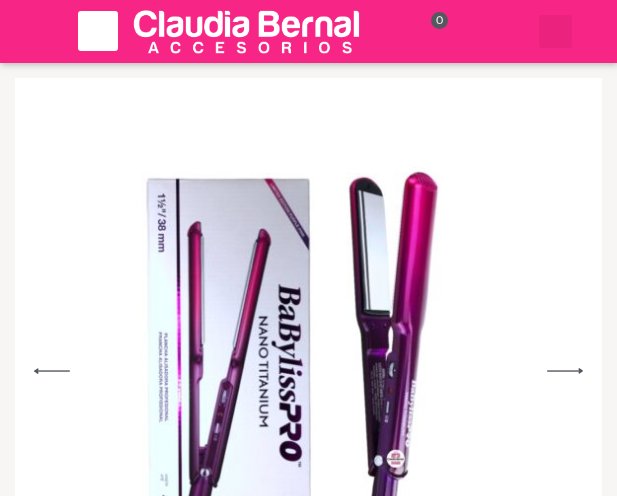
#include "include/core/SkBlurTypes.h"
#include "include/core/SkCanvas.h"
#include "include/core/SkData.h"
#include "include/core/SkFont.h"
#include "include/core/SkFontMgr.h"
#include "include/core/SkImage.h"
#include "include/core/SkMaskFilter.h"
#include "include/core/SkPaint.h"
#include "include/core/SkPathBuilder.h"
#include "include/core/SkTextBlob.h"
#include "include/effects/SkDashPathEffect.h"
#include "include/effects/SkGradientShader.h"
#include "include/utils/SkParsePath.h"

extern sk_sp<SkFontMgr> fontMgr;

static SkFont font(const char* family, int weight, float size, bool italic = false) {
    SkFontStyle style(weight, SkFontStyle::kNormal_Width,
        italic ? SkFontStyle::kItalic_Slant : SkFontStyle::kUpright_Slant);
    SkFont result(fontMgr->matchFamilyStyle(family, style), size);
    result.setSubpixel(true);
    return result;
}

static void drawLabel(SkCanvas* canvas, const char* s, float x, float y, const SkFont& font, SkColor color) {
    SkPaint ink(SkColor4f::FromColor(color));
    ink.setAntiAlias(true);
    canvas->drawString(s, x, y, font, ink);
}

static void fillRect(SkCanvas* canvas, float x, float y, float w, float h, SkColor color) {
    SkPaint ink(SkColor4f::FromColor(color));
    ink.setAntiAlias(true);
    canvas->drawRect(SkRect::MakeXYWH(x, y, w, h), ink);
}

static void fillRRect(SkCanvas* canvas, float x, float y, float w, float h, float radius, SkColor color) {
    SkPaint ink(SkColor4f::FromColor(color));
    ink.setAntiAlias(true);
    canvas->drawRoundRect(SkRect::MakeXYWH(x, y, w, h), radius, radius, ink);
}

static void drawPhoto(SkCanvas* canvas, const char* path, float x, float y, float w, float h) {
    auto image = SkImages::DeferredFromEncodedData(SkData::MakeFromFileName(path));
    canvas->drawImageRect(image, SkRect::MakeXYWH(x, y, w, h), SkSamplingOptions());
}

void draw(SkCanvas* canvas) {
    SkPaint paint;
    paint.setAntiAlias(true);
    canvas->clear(0xFFF7F6F4);
    paint.setColor(0x4D000000);
    paint.setMaskFilter(SkMaskFilter::MakeBlur(kNormal_SkBlurStyle, 3.5f));
    canvas->drawRect(SkRect::MakeXYWH(1, 1, 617, 63), paint);
    paint.setMaskFilter(nullptr);
    fillRect(canvas, 0, 0, 617, 63, 0xFFF72585);
    fillRRect(canvas, 78, 11, 40, 40, 3, 0xFFFFFFFF);
    drawPhoto(canvas, "assets/img1.png", 133, 10, 227, 44);
    paint.setColor(0xFF54595F);
    canvas->drawCircle(439.5f, 20.5f, 8.5f, paint);
    SkFont font1 = font("Montserrat", 100, 11);
    drawLabel(canvas, "0", 436, 24, font1, 0xFFFFFFFF);
    fillRRect(canvas, 539, 15, 33, 33, 3, 0xFFEB237E);
    fillRect(canvas, 15, 78, 587, 418, 0xFFFFFFFF);
    drawPhoto(canvas, "assets/img2.png", 141, 166, 300, 330);
    drawPhoto(canvas, "assets/img3.png", 34, 368, 36, 6);
    drawPhoto(canvas, "assets/img4.png", 547, 368, 36, 6);
}
